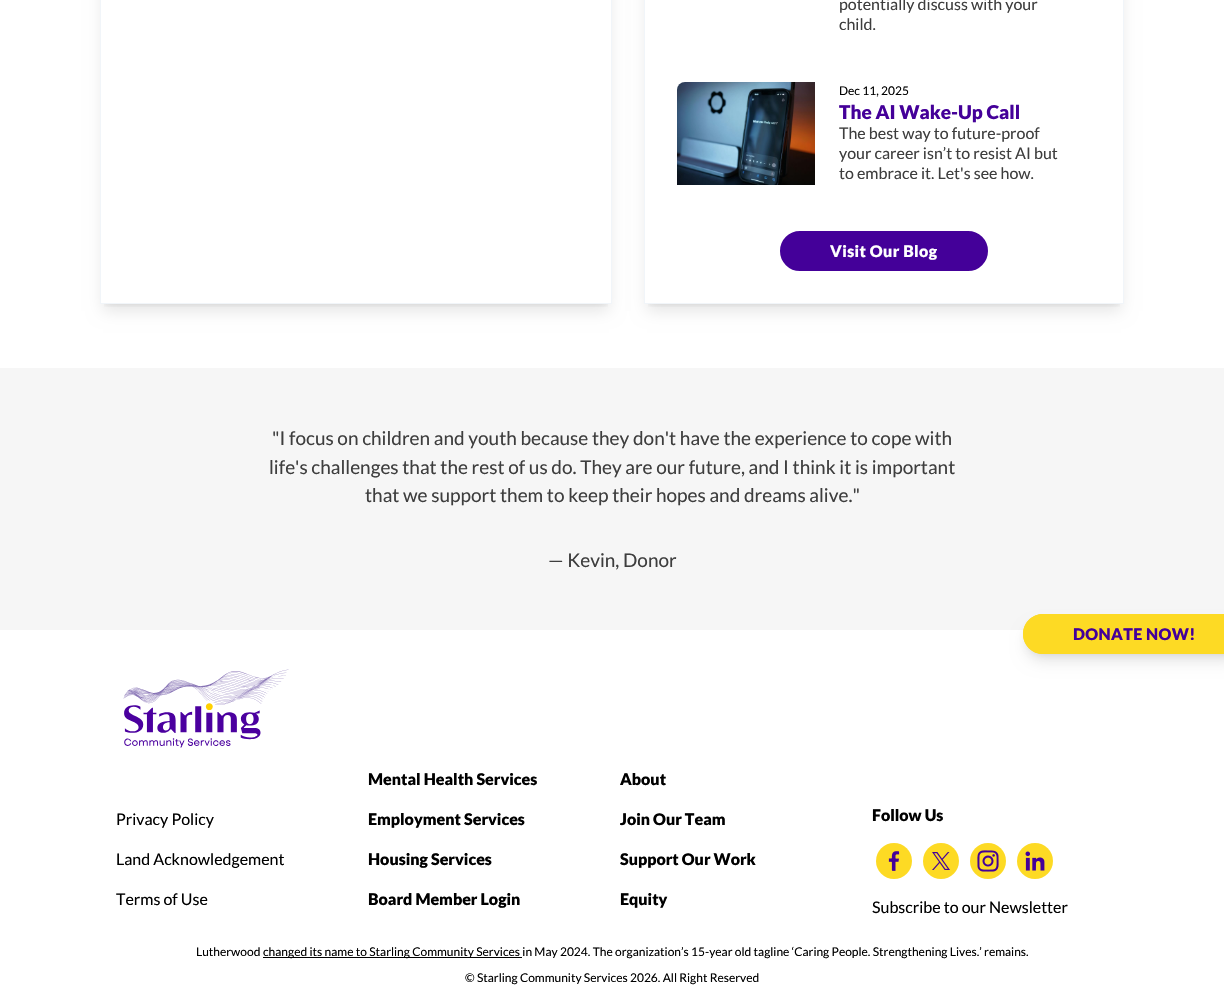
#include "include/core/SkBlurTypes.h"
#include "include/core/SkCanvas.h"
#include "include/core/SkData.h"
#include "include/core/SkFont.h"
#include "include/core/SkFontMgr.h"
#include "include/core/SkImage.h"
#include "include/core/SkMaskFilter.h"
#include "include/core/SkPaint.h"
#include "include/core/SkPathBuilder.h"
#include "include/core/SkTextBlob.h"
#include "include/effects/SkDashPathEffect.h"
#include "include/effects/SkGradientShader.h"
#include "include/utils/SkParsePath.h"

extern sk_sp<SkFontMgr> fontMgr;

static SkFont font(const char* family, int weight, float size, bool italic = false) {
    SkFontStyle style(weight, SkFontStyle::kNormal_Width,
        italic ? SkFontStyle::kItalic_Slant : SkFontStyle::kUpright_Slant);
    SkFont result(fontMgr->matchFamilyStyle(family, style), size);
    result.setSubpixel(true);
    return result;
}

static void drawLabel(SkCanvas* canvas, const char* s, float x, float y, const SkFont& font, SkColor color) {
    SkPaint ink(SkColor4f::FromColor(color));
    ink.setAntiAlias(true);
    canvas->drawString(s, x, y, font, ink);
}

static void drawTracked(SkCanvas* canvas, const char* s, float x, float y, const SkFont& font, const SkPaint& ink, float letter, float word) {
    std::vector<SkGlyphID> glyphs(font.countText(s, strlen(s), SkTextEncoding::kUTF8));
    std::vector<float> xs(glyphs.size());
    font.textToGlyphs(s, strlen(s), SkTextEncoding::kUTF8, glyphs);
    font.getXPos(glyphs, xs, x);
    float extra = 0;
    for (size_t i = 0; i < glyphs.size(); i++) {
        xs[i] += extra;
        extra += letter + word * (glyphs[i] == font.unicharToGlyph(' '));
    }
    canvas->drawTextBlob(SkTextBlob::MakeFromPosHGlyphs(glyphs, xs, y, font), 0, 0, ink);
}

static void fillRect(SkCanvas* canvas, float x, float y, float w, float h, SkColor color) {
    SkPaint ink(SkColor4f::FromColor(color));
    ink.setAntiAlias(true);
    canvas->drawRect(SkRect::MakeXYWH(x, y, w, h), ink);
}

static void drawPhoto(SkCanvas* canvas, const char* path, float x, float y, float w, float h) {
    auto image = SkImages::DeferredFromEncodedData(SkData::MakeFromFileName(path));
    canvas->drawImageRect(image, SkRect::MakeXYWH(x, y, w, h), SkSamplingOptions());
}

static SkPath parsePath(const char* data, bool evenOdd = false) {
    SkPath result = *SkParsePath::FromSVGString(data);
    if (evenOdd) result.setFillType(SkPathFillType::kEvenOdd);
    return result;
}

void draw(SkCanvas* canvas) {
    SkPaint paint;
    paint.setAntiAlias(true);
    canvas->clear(0xFFFFFFFF);
    canvas->save();
    canvas->clipRect(SkRect::MakeXYWH(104, 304, 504, 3));
    paint.setColor(0x1A000000);
    paint.setMaskFilter(SkMaskFilter::MakeBlur(kNormal_SkBlurStyle, 3));
    canvas->drawRect(SkRect::MakeXYWH(104, -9, 504, 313), paint);
    paint.setMaskFilter(nullptr);
    canvas->restore();
    canvas->save();
    canvas->clipPath(parsePath("M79 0H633V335H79ZM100-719H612V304H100Z", true), true);
    paint.setMaskFilter(SkMaskFilter::MakeBlur(kNormal_SkBlurStyle, 7.5f));
    canvas->drawRect(SkRect::MakeXYWH(103, -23, 506, 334), paint);
    paint.setMaskFilter(nullptr);
    canvas->restore();
    paint.setStroke(true);
    paint.setStrokeWidth(1);
    paint.setColor(0xFFF1F5F9);
    canvas->drawRect(SkRect::MakeXYWH(100.5f, -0.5f, 511, 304), paint);
    canvas->save();
    canvas->clipRect(SkRect::MakeXYWH(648, 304, 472, 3));
    paint.setStroke(false);
    paint.setColor(0x1A000000);
    paint.setMaskFilter(SkMaskFilter::MakeBlur(kNormal_SkBlurStyle, 3));
    canvas->drawRect(SkRect::MakeXYWH(648, -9, 472, 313), paint);
    paint.setMaskFilter(nullptr);
    canvas->restore();
    canvas->save();
    canvas->clipPath(parsePath("M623 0H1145V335H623ZM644-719H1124V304H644Z", true), true);
    paint.setMaskFilter(SkMaskFilter::MakeBlur(kNormal_SkBlurStyle, 7.5f));
    canvas->drawRect(SkRect::MakeXYWH(647, -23, 474, 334), paint);
    paint.setMaskFilter(nullptr);
    canvas->restore();
    paint.setStroke(true);
    paint.setColor(0xFFF1F5F9);
    canvas->drawRect(SkRect::MakeXYWH(644.5f, -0.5f, 479, 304), paint);
    SkFont font1 = font("Lato", 400, 16);
    drawLabel(canvas, "potentially discuss with your", 839, 10, font1, 0xFF3E3E3E);
    drawLabel(canvas, "child.", 839, 30, font1, 0xFF3E3E3E);
    drawPhoto(canvas, "assets/img1.png", 677, 82, 138, 103);
    SkFont font2 = font("Lato", 400, 12);
    drawLabel(canvas, "Dec 11, 2025", 839, 95, font2, 0xFF000000);
    SkFont font3 = font("Lato", 900, 19);
    drawLabel(canvas, "The AI Wake-Up Call", 839, 119, font3, 0xFF440099);
    drawLabel(canvas, "The best way to future-proof", 839, 139, font1, 0xFF3E3E3E);
    drawLabel(canvas, "your career isn’t to resist AI but", 839, 159, font1, 0xFF3E3E3E);
    drawLabel(canvas, "to embrace it. Let's see how.", 839, 179, font1, 0xFF3E3E3E);
    paint.setStroke(false);
    paint.setColor(0xFF440099);
    canvas->drawRoundRect(SkRect::MakeXYWH(781, 232, 206, 38), 19, 19, paint);
    paint.setStroke(true);
    paint.setStrokeWidth(2);
    canvas->drawRoundRect(SkRect::MakeXYWH(781, 232, 206, 38), 19, 19, paint);
    SkFont font4 = font("Lato", 900, 16);
    paint.setStroke(false);
    paint.setColor(0xFFFFFFFF);
    drawTracked(canvas, "Visit Our Blog", 830, 257, font4, paint, 0.4f, 0);
    fillRect(canvas, 0, 368, 1224, 262, 0xFFF6F6F6);
    SkFont font5 = font("Lato", 400, 19);
    drawLabel(canvas, "\"I focus on children and youth because they don't have the experience to cope with", 272, 445, font5, 0xFF3E3E3E);
    drawLabel(canvas, "life's challenges that the rest of us do. They are our future, and I think it is important", 269, 474, font5, 0xFF3E3E3E);
    drawLabel(canvas, "that we support them to keep their hopes and dreams alive.\"", 365, 502, font5, 0xFF3E3E3E);
    drawLabel(canvas, "— Kevin, Donor", 548, 567, font5, 0xFF3E3E3E);
    paint.setColor(0x1A000000);
    paint.setMaskFilter(SkMaskFilter::MakeBlur(kNormal_SkBlurStyle, 3));
    canvas->drawRoundRect(SkRect::MakeXYWH(1027, 622, 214, 32), 16, 16, paint);
    paint.setMaskFilter(nullptr);
    paint.setMaskFilter(SkMaskFilter::MakeBlur(kNormal_SkBlurStyle, 7.5f));
    canvas->drawRoundRect(SkRect::MakeXYWH(1026, 627, 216, 34), 17, 17, paint);
    paint.setMaskFilter(nullptr);
    paint.setColor(0xFFFDDA24);
    canvas->drawPath(parsePath("M1043 614H1224V654H1043C1032 654 1023 645 1023 634C1023 623 1032 614 1043 614Z"), paint);
    paint.setStroke(true);
    canvas->drawRoundRect(SkRect::MakeXYWH(1024, 615, 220, 38), 19, 19, paint);
    paint.setStroke(false);
    paint.setColor(0xFF440099);
    drawTracked(canvas, "DONATE NOW!", 1073, 640, font4, paint, 0.4f, 0);
    drawPhoto(canvas, "assets/img2.png", 123, 669, 166, 79);
    drawLabel(canvas, "Privacy Policy", 116, 825, font1, 0xFF000000);
    drawLabel(canvas, "Land Acknowledgement", 116, 865, font1, 0xFF000000);
    drawLabel(canvas, "Terms of Use", 116, 905, font1, 0xFF000000);
    drawLabel(canvas, "Mental Health Services", 368, 785, font4, 0xFF000000);
    drawLabel(canvas, "Employment Services", 368, 825, font4, 0xFF000000);
    drawLabel(canvas, "Housing Services", 368, 865, font4, 0xFF000000);
    drawLabel(canvas, "Board Member Login", 368, 905, font4, 0xFF000000);
    drawLabel(canvas, "About", 620, 785, font4, 0xFF000000);
    drawLabel(canvas, "Join Our Team", 620, 825, font4, 0xFF000000);
    drawLabel(canvas, "Support Our Work", 620, 865, font4, 0xFF000000);
    drawLabel(canvas, "Equity", 620, 905, font4, 0xFF000000);
    drawLabel(canvas, "Follow Us", 872, 821, font4, 0xFF000000);
    paint.setColor(0xFFFDDA24);
    canvas->drawCircle(894, 861, 18, paint);
    drawPhoto(canvas, "assets/img3.png", 888, 851, 12, 20);
    canvas->drawCircle(941, 861, 18, paint);
    drawPhoto(canvas, "assets/img4.png", 932, 852, 18, 18);
    canvas->drawCircle(988, 861, 18, paint);
    drawPhoto(canvas, "assets/img5.png", 977, 850, 22, 22);
    canvas->drawCircle(1035, 861, 18, paint);
    drawPhoto(canvas, "assets/img6.png", 1025, 851, 20, 20);
    drawLabel(canvas, "Subscribe to our Newsletter", 872, 913, font1, 0xFF000000);
    drawLabel(canvas, "Lutherwood", 196, 956, font2, 0xFF000000);
    fillRect(canvas, 263, 957, 259, 1, 0xFF000000);
    drawLabel(canvas, "changed its name to Starling Community Services in May 2024. The organization’s 15-year old tagline ‘Caring People. Strengthening Lives.’ remains.", 263, 956, font2, 0xFF000000);
    drawLabel(canvas, "© Starling Community Services 2026. All Right Reserved", 465, 982, font2, 0xFF000000);
}
